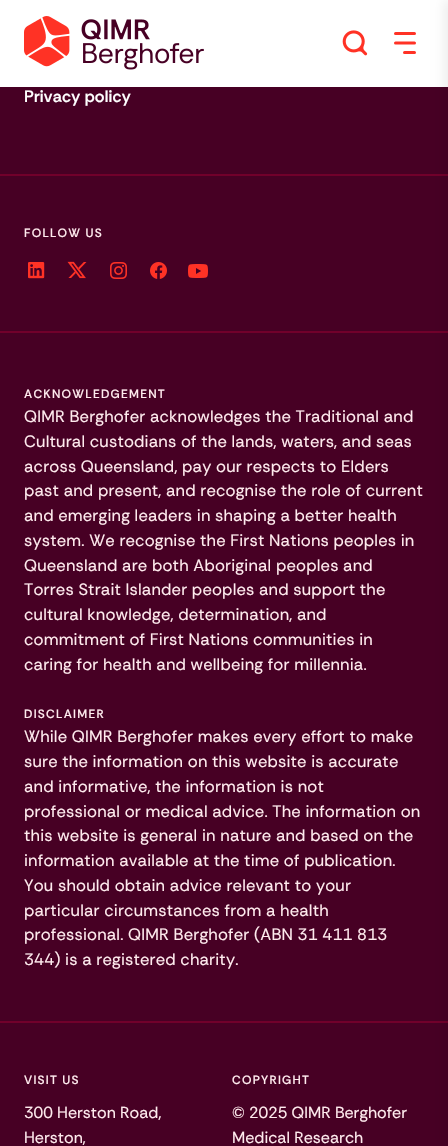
#include "include/core/SkBlurTypes.h"
#include "include/core/SkCanvas.h"
#include "include/core/SkData.h"
#include "include/core/SkFont.h"
#include "include/core/SkFontMgr.h"
#include "include/core/SkImage.h"
#include "include/core/SkMaskFilter.h"
#include "include/core/SkPaint.h"
#include "include/core/SkPathBuilder.h"
#include "include/core/SkTextBlob.h"
#include "include/effects/SkDashPathEffect.h"
#include "include/effects/SkGradientShader.h"
#include "include/utils/SkParsePath.h"

extern sk_sp<SkFontMgr> fontMgr;

static SkFont font(const char* family, int weight, float size, bool italic = false) {
    SkFontStyle style(weight, SkFontStyle::kNormal_Width,
        italic ? SkFontStyle::kItalic_Slant : SkFontStyle::kUpright_Slant);
    SkFont result(fontMgr->matchFamilyStyle(family, style), size);
    result.setSubpixel(true);
    return result;
}

static void drawLabel(SkCanvas* canvas, const char* s, float x, float y, const SkFont& font, SkColor color) {
    SkPaint ink(SkColor4f::FromColor(color));
    ink.setAntiAlias(true);
    canvas->drawString(s, x, y, font, ink);
}

static void drawTracked(SkCanvas* canvas, const char* s, float x, float y, const SkFont& font, const SkPaint& ink, float letter, float word) {
    std::vector<SkGlyphID> glyphs(font.countText(s, strlen(s), SkTextEncoding::kUTF8));
    std::vector<float> xs(glyphs.size());
    font.textToGlyphs(s, strlen(s), SkTextEncoding::kUTF8, glyphs);
    font.getXPos(glyphs, xs, x);
    float extra = 0;
    for (size_t i = 0; i < glyphs.size(); i++) {
        xs[i] += extra;
        extra += letter + word * (glyphs[i] == font.unicharToGlyph(' '));
    }
    canvas->drawTextBlob(SkTextBlob::MakeFromPosHGlyphs(glyphs, xs, y, font), 0, 0, ink);
}

static void fillRect(SkCanvas* canvas, float x, float y, float w, float h, SkColor color) {
    SkPaint ink(SkColor4f::FromColor(color));
    ink.setAntiAlias(true);
    canvas->drawRect(SkRect::MakeXYWH(x, y, w, h), ink);
}

static void drawPhoto(SkCanvas* canvas, const char* path, float x, float y, float w, float h) {
    auto image = SkImages::DeferredFromEncodedData(SkData::MakeFromFileName(path));
    canvas->drawImageRect(image, SkRect::MakeXYWH(x, y, w, h), SkSamplingOptions());
}

static SkPath parsePath(const char* data, bool evenOdd = false) {
    SkPath result = *SkParsePath::FromSVGString(data);
    if (evenOdd) result.setFillType(SkPathFillType::kEvenOdd);
    return result;
}

void draw(SkCanvas* canvas) {
    SkPaint paint;
    paint.setAntiAlias(true);
    canvas->clear(0xFF470024);
    fillRect(canvas, 0, 0, 448, 87, 0xFFFFFFFF);
    drawPhoto(canvas, "assets/img1.png", 24, 16, 180, 54);
    drawPhoto(canvas, "assets/img2.png", 342, 30, 26, 26);
    paint.setStroke(true);
    paint.setStrokeWidth(3);
    paint.setStrokeCap(SkPaint::kRound_Cap);
    paint.setColor(0xFFFF3225);
    canvas->drawPath(parsePath("M395.5 33.5H414.5M395.5 43H414.5M414.5 52.5H404.5"), paint);
    SkFont font1 = font("Rethink Sans", 600, 16.5f);
    paint.setStroke(false);
    paint.setColor(0xFFFFFFFF);
    drawTracked(canvas, "Privacy policy", 24, 102, font1, paint, 0.17f, 0);
    fillRect(canvas, 0, 174, 448, 2, 0xFF71002B);
    SkFont font2 = font("Rethink Sans", 500, 12);
    paint.setColor(0xFFFFEBEE);
    drawTracked(canvas, "FOLLOW US", 24, 237, font2, paint, 1.25f, 0);
    drawPhoto(canvas, "assets/img3.png", 28, 262, 17, 17);
    drawPhoto(canvas, "assets/img4.png", 67, 261, 20, 18);
    drawPhoto(canvas, "assets/img5.png", 110, 262, 17, 17);
    drawPhoto(canvas, "assets/img6.png", 150, 262, 17, 17);
    drawPhoto(canvas, "assets/img7.png", 188, 264, 20, 14);
    fillRect(canvas, 0, 331, 448, 2, 0xFF71002B);
    drawTracked(canvas, "ACKNOWLEDGEMENT", 24, 398, font2, paint, 1.25f, 0);
    SkFont font3 = font("Rethink Sans", 400, 16.5f);
    drawTracked(canvas, "QIMR Berghofer acknowledges the Traditional and", 24, 422, font3, paint, 0.17f, 0);
    drawTracked(canvas, "Cultural custodians of the lands, waters, and seas", 24, 447, font3, paint, 0.17f, 0);
    drawTracked(canvas, "across Queensland, pay our respects to Elders", 24, 472, font3, paint, 0.17f, 0);
    drawTracked(canvas, "past and present, and recognise the role of current", 24, 496, font3, paint, 0.17f, 0);
    drawTracked(canvas, "and emerging leaders in shaping a better health", 24, 521, font3, paint, 0.17f, 0);
    drawTracked(canvas, "system. We recognise the First Nations peoples in", 24, 546, font3, paint, 0.17f, 0);
    drawTracked(canvas, "Queensland are both Aboriginal peoples and", 24, 571, font3, paint, 0.17f, 0);
    drawTracked(canvas, "Torres Strait Islander peoples and support the", 24, 595, font3, paint, 0.17f, 0);
    drawTracked(canvas, "cultural knowledge, determination, and", 24, 620, font3, paint, 0.17f, 0);
    drawTracked(canvas, "commitment of First Nations communities in", 24, 645, font3, paint, 0.17f, 0);
    drawTracked(canvas, "caring for health and wellbeing for millennia.", 24, 670, font3, paint, 0.17f, 0);
    drawTracked(canvas, "DISCLAIMER", 24, 718, font2, paint, 1.25f, 0);
    drawTracked(canvas, "While QIMR Berghofer makes every effort to make", 24, 742, font3, paint, 0.17f, 0);
    drawTracked(canvas, "sure the information on this website is accurate", 24, 767, font3, paint, 0.17f, 0);
    drawTracked(canvas, "and informative, the information is not", 24, 792, font3, paint, 0.17f, 0);
    drawTracked(canvas, "professional or medical advice. The information on", 24, 817, font3, paint, 0.17f, 0);
    drawTracked(canvas, "this website is general in nature and based on the", 24, 841, font3, paint, 0.17f, 0);
    drawTracked(canvas, "information available at the time of publication.", 24, 866, font3, paint, 0.17f, 0);
    drawTracked(canvas, "You should obtain advice relevant to your", 24, 891, font3, paint, 0.17f, 0);
    drawTracked(canvas, "particular circumstances from a health", 24, 916, font3, paint, 0.17f, 0);
    drawTracked(canvas, "professional. QIMR Berghofer (ABN 31 411 813", 24, 940, font3, paint, 0.17f, 0);
    drawTracked(canvas, "344) is a registered charity.", 24, 965, font3, paint, 0.17f, 0);
    fillRect(canvas, 0, 1021, 448, 2, 0xFF71002B);
    drawTracked(canvas, "VISIT US", 24, 1084, font2, paint, 1.25f, 0);
    SkFont font4 = font("Rethink Sans", 400, 16);
    drawLabel(canvas, "300 Herston Road,", 24, 1118, font4, 0xFFFFEBEE);
    drawLabel(canvas, "Herston,", 24, 1143, font4, 0xFFFFEBEE);
    drawTracked(canvas, "COPYRIGHT", 232, 1084, font2, paint, 1.25f, 0);
    drawLabel(canvas, "© 2025 QIMR Berghofer", 232, 1118, font4, 0xFFFFEBEE);
    drawLabel(canvas, "Medical Research", 232, 1143, font4, 0xFFFFEBEE);
    paint.setColor(0x12000000);
    paint.setMaskFilter(SkMaskFilter::MakeBlur(kNormal_SkBlurStyle, 6));
    canvas->drawRect(SkRect::MakeXYWH(444, 0, 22, 1146), paint);
    paint.setMaskFilter(nullptr);
}
